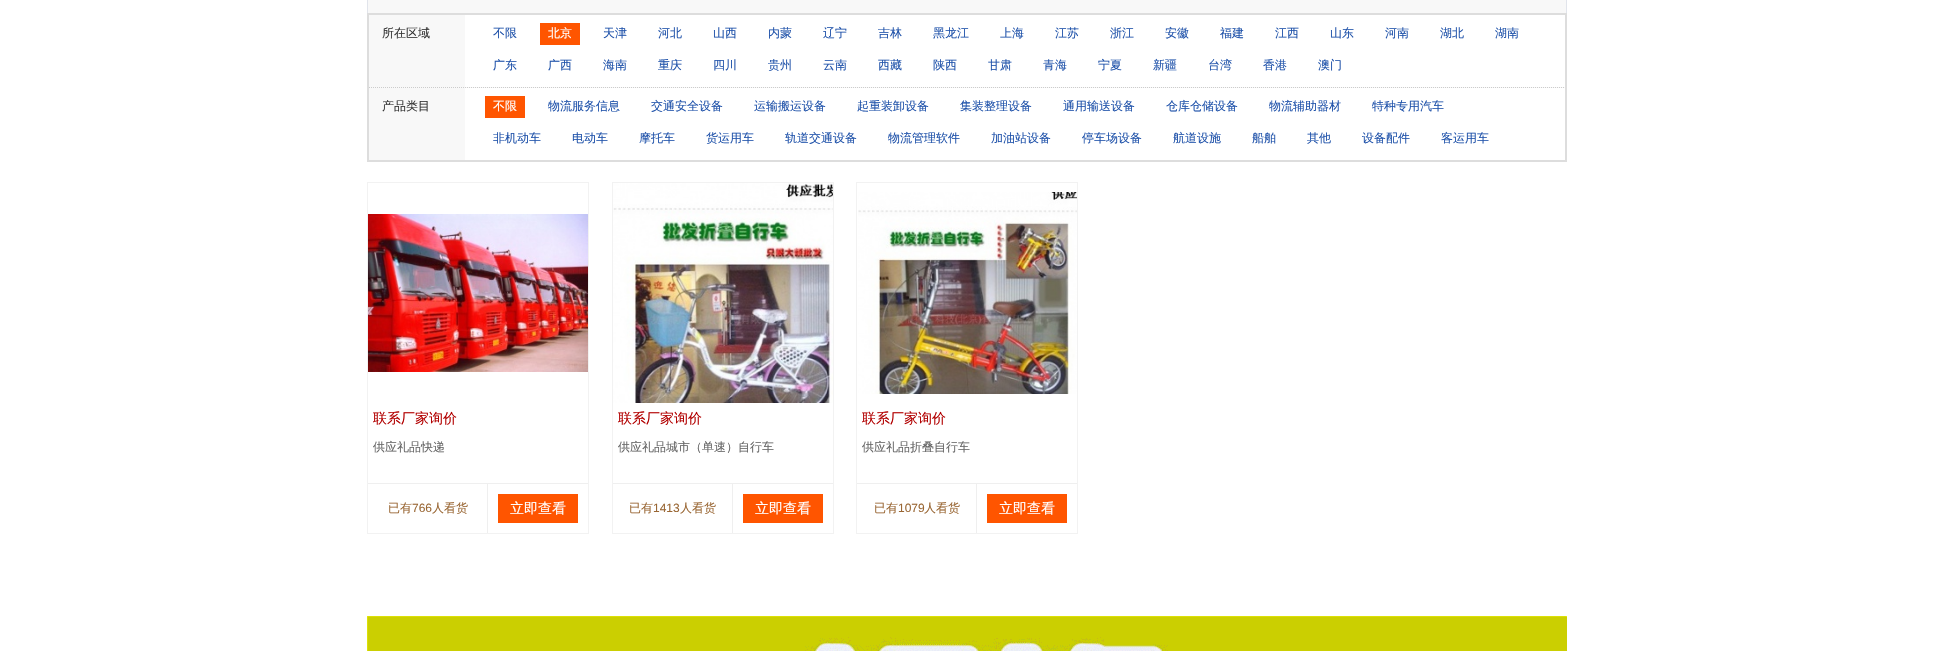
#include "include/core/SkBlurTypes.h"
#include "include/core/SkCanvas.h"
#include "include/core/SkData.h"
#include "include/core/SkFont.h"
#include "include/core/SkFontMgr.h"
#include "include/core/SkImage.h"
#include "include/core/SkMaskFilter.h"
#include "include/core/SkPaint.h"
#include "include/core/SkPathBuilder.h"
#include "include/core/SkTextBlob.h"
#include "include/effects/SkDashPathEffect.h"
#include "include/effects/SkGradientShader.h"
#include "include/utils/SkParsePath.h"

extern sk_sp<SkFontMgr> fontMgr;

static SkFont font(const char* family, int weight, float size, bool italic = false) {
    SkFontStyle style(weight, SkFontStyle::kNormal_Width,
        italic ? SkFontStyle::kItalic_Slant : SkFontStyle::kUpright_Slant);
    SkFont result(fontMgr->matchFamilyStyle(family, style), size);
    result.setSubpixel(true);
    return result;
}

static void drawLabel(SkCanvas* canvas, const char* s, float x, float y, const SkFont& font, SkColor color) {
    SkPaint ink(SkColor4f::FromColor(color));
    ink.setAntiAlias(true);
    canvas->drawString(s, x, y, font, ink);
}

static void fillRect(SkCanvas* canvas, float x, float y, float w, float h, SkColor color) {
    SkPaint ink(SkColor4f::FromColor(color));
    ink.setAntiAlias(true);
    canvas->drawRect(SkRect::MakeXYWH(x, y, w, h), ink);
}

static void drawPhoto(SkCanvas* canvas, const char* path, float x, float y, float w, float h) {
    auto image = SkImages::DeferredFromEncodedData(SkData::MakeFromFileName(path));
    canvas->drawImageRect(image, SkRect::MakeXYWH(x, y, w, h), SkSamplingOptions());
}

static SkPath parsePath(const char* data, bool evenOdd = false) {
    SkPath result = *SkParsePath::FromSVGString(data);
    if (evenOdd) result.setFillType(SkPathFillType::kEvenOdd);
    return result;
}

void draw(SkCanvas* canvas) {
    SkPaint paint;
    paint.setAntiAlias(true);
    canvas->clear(0xFFFFFFFF);
    fillRect(canvas, 368, 0, 1198, 13, 0xFFF8F8F8);
    fillRect(canvas, 1566, 0, 1, 13, 0xFFE1E4EB);
    fillRect(canvas, 367, 0, 1, 13, 0xFFE1E4EB);
    paint.setColor(0xFFF8F8F8);
    canvas->drawRect(SkRect::MakeXYWH(368, 14, 1198, 147), paint);
    paint.setStroke(true);
    paint.setStrokeWidth(2);
    paint.setColor(0xFFDDDDDD);
    canvas->drawRect(SkRect::MakeXYWH(368, 14, 1198, 147), paint);
    paint.setStrokeWidth(1);
    paint.setColor(0xFFCCCCCC);
    paint.setPathEffect(SkDashPathEffect::Make({{1, 1}}, 0));
    canvas->drawPath(parsePath("M369 87.5H1565"), paint);
    paint.setPathEffect(nullptr);
    SkFont font1 = font("WenQuanYi Zen Hei", 500, 12);
    drawLabel(canvas, "所在区域", 382, 37, font1, 0xFF333333);
    fillRect(canvas, 465, 15, 1100, 72, 0xFFFFFFFF);
    drawLabel(canvas, "不限", 493, 37, font1, 0xFF1F52AA);
    fillRect(canvas, 540, 23, 40, 22, 0xFFFF5500);
    drawLabel(canvas, "北京", 548, 37, font1, 0xFFFFFFFF);
    drawLabel(canvas, "天津", 603, 37, font1, 0xFF1F52AA);
    drawLabel(canvas, "河北", 658, 37, font1, 0xFF1F52AA);
    drawLabel(canvas, "山西", 713, 37, font1, 0xFF1F52AA);
    drawLabel(canvas, "内蒙", 768, 37, font1, 0xFF1F52AA);
    drawLabel(canvas, "辽宁", 823, 37, font1, 0xFF1F52AA);
    drawLabel(canvas, "吉林", 878, 37, font1, 0xFF1F52AA);
    drawLabel(canvas, "黑龙江", 933, 37, font1, 0xFF1F52AA);
    drawLabel(canvas, "上海", 1000, 37, font1, 0xFF1F52AA);
    drawLabel(canvas, "江苏", 1055, 37, font1, 0xFF1F52AA);
    drawLabel(canvas, "浙江", 1110, 37, font1, 0xFF1F52AA);
    drawLabel(canvas, "安徽", 1165, 37, font1, 0xFF1F52AA);
    drawLabel(canvas, "福建", 1220, 37, font1, 0xFF1F52AA);
    drawLabel(canvas, "江西", 1275, 37, font1, 0xFF1F52AA);
    drawLabel(canvas, "山东", 1330, 37, font1, 0xFF1F52AA);
    drawLabel(canvas, "河南", 1385, 37, font1, 0xFF1F52AA);
    drawLabel(canvas, "湖北", 1440, 37, font1, 0xFF1F52AA);
    drawLabel(canvas, "湖南", 1495, 37, font1, 0xFF1F52AA);
    drawLabel(canvas, "广东", 493, 69, font1, 0xFF1F52AA);
    drawLabel(canvas, "广西", 548, 69, font1, 0xFF1F52AA);
    drawLabel(canvas, "海南", 603, 69, font1, 0xFF1F52AA);
    drawLabel(canvas, "重庆", 658, 69, font1, 0xFF1F52AA);
    drawLabel(canvas, "四川", 713, 69, font1, 0xFF1F52AA);
    drawLabel(canvas, "贵州", 768, 69, font1, 0xFF1F52AA);
    drawLabel(canvas, "云南", 823, 69, font1, 0xFF1F52AA);
    drawLabel(canvas, "西藏", 878, 69, font1, 0xFF1F52AA);
    drawLabel(canvas, "陕西", 933, 69, font1, 0xFF1F52AA);
    drawLabel(canvas, "甘肃", 988, 69, font1, 0xFF1F52AA);
    drawLabel(canvas, "青海", 1043, 69, font1, 0xFF1F52AA);
    drawLabel(canvas, "宁夏", 1098, 69, font1, 0xFF1F52AA);
    drawLabel(canvas, "新疆", 1153, 69, font1, 0xFF1F52AA);
    drawLabel(canvas, "台湾", 1208, 69, font1, 0xFF1F52AA);
    drawLabel(canvas, "香港", 1263, 69, font1, 0xFF1F52AA);
    drawLabel(canvas, "澳门", 1318, 69, font1, 0xFF1F52AA);
    drawLabel(canvas, "产品类目", 382, 110, font1, 0xFF333333);
    fillRect(canvas, 465, 88, 1100, 72, 0xFFFFFFFF);
    fillRect(canvas, 485, 96, 40, 22, 0xFFFF5500);
    drawLabel(canvas, "不限", 493, 110, font1, 0xFFFFFFFF);
    drawLabel(canvas, "物流服务信息", 548, 110, font1, 0xFF1F52AA);
    drawLabel(canvas, "交通安全设备", 651, 110, font1, 0xFF1F52AA);
    drawLabel(canvas, "运输搬运设备", 754, 110, font1, 0xFF1F52AA);
    drawLabel(canvas, "起重装卸设备", 857, 110, font1, 0xFF1F52AA);
    drawLabel(canvas, "集装整理设备", 960, 110, font1, 0xFF1F52AA);
    drawLabel(canvas, "通用输送设备", 1063, 110, font1, 0xFF1F52AA);
    drawLabel(canvas, "仓库仓储设备", 1166, 110, font1, 0xFF1F52AA);
    drawLabel(canvas, "物流辅助器材", 1269, 110, font1, 0xFF1F52AA);
    drawLabel(canvas, "特种专用汽车", 1372, 110, font1, 0xFF1F52AA);
    drawLabel(canvas, "非机动车", 493, 142, font1, 0xFF1F52AA);
    drawLabel(canvas, "电动车", 572, 142, font1, 0xFF1F52AA);
    drawLabel(canvas, "摩托车", 639, 142, font1, 0xFF1F52AA);
    drawLabel(canvas, "货运用车", 706, 142, font1, 0xFF1F52AA);
    drawLabel(canvas, "轨道交通设备", 785, 142, font1, 0xFF1F52AA);
    drawLabel(canvas, "物流管理软件", 888, 142, font1, 0xFF1F52AA);
    drawLabel(canvas, "加油站设备", 991, 142, font1, 0xFF1F52AA);
    drawLabel(canvas, "停车场设备", 1082, 142, font1, 0xFF1F52AA);
    drawLabel(canvas, "航道设施", 1173, 142, font1, 0xFF1F52AA);
    drawLabel(canvas, "船舶", 1252, 142, font1, 0xFF1F52AA);
    drawLabel(canvas, "其他", 1307, 142, font1, 0xFF1F52AA);
    drawLabel(canvas, "设备配件", 1362, 142, font1, 0xFF1F52AA);
    drawLabel(canvas, "客运用车", 1441, 142, font1, 0xFF1F52AA);
    paint.setColor(0xFFF2F2F2);
    canvas->drawRect(SkRect::MakeXYWH(367.5f, 182.5f, 221, 351), paint);
    drawPhoto(canvas, "assets/img1.png", 368, 214, 220, 158);
    SkFont font2 = font("WenQuanYi Zen Hei", 500, 14);
    drawLabel(canvas, "联系厂家询价", 373, 423, font2, 0xFFB20000);
    drawLabel(canvas, "供应礼品快递", 373, 451, font1, 0xFF666666);
    fillRect(canvas, 368, 483, 220, 1, 0xFFEFEFEF);
    fillRect(canvas, 487, 484, 1, 49, 0xFFEFEFEF);
    drawLabel(canvas, "已有", 388, 512, font1, 0xFF996633);
    SkFont font3 = font("Liberation Sans", 400, 12);
    drawLabel(canvas, "766", 412, 512, font3, 0xFF996633);
    drawLabel(canvas, "人看货", 432, 512, font1, 0xFF996633);
    fillRect(canvas, 498, 494, 80, 29, 0xFFFF5500);
    drawLabel(canvas, "立即查看", 510, 513, font2, 0xFFFFFFFF);
    canvas->drawRect(SkRect::MakeXYWH(612.5f, 182.5f, 221, 351), paint);
    drawPhoto(canvas, "assets/img2.png", 613, 183, 220, 220);
    drawLabel(canvas, "联系厂家询价", 618, 423, font2, 0xFFB20000);
    drawLabel(canvas, "供应礼品城市（单速）自行车", 618, 451, font1, 0xFF666666);
    fillRect(canvas, 613, 483, 220, 1, 0xFFEFEFEF);
    fillRect(canvas, 732, 484, 1, 49, 0xFFEFEFEF);
    drawLabel(canvas, "已有", 629, 512, font1, 0xFF996633);
    drawLabel(canvas, "1413", 653, 512, font3, 0xFF996633);
    drawLabel(canvas, "人看货", 680, 512, font1, 0xFF996633);
    fillRect(canvas, 743, 494, 80, 29, 0xFFFF5500);
    drawLabel(canvas, "立即查看", 755, 513, font2, 0xFFFFFFFF);
    canvas->drawRect(SkRect::MakeXYWH(856.5f, 182.5f, 221, 351), paint);
    drawPhoto(canvas, "assets/img3.png", 858, 192, 219, 202);
    drawLabel(canvas, "联系厂家询价", 862, 423, font2, 0xFFB20000);
    drawLabel(canvas, "供应礼品折叠自行车", 862, 451, font1, 0xFF666666);
    fillRect(canvas, 857, 483, 220, 1, 0xFFEFEFEF);
    fillRect(canvas, 976, 484, 1, 49, 0xFFEFEFEF);
    drawLabel(canvas, "已有", 874, 512, font1, 0xFF996633);
    drawLabel(canvas, "1079", 898, 512, font3, 0xFF996633);
    drawLabel(canvas, "人看货", 924, 512, font1, 0xFF996633);
    fillRect(canvas, 987, 494, 80, 29, 0xFFFF5500);
    drawLabel(canvas, "立即查看", 999, 513, font2, 0xFFFFFFFF);
    drawPhoto(canvas, "assets/img4.png", 367, 616, 1200, 35);
}
